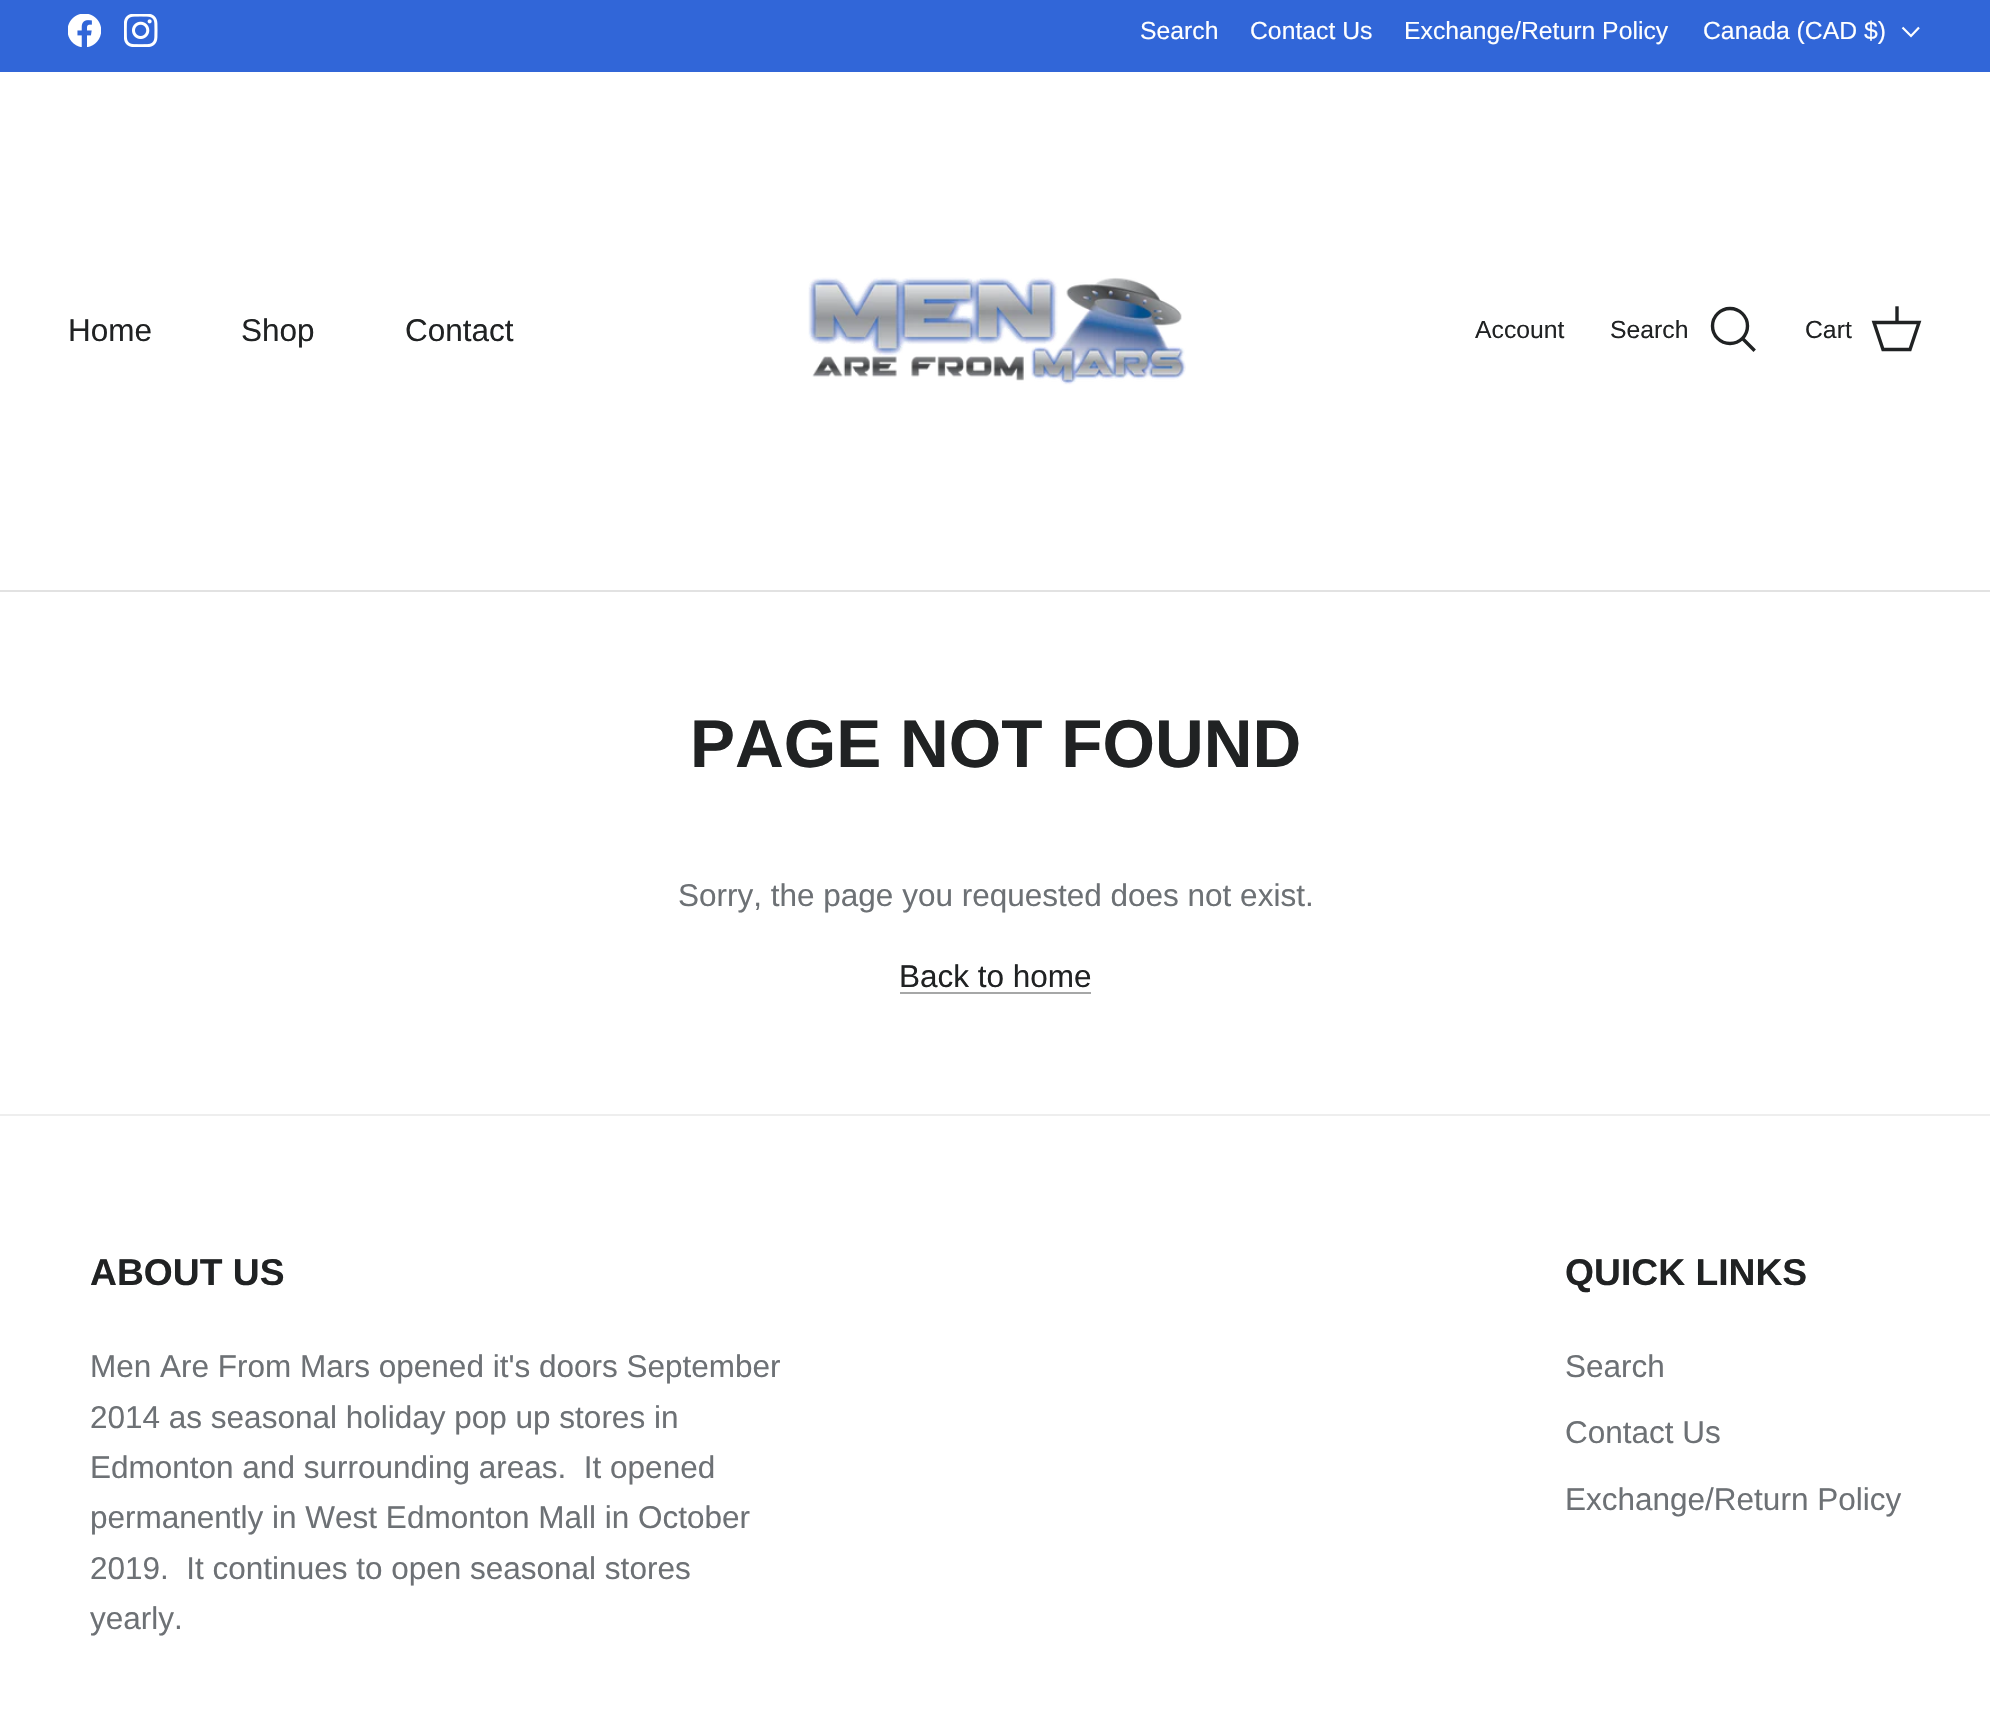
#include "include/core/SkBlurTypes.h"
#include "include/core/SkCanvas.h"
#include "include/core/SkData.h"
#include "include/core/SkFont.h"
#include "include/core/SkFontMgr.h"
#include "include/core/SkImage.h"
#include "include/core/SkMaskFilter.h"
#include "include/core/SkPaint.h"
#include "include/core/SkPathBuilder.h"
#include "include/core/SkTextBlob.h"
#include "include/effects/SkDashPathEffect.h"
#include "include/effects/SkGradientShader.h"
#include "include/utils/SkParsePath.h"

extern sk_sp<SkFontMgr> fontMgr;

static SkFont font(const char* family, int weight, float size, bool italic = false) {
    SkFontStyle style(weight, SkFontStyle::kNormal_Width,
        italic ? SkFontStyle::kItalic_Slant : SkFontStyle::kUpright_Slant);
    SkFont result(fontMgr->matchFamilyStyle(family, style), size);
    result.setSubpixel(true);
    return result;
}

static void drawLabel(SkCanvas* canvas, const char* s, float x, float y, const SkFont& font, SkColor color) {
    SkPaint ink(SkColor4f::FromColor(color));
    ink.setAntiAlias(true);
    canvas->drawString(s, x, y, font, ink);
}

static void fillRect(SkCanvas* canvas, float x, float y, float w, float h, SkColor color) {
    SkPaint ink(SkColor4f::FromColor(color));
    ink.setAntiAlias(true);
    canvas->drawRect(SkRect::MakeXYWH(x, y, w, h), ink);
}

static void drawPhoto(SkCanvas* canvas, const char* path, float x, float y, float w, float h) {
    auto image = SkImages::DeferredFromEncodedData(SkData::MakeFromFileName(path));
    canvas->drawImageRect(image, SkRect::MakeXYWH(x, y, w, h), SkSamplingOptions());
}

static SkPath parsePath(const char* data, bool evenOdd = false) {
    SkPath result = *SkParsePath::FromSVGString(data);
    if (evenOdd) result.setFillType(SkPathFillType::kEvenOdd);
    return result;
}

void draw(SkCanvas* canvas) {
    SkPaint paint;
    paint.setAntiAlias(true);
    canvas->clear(0xFFFFFFFF);
    fillRect(canvas, 0, 0, 1990, 72, 0xFF3166D8);
    drawPhoto(canvas, "assets/img1.png", 68, 14, 33, 33);
    drawPhoto(canvas, "assets/img2.png", 124, 14, 34, 33);
    SkFont font1 = font("Liberation Sans", 400, 24.75f);
    drawLabel(canvas, "Search", 1140, 39, font1, 0xFFFFFFFF);
    drawLabel(canvas, "Contact Us", 1250, 39, font1, 0xFFFFFFFF);
    drawLabel(canvas, "Exchange/Return Policy", 1404, 39, font1, 0xFFFFFFFF);
    drawLabel(canvas, "Canada (CAD $)", 1703, 39, font1, 0xFFFFFFFF);
    paint.setStroke(true);
    paint.setStrokeWidth(2.2f);
    paint.setColor(0xFFFFFFFF);
    canvas->drawPath(parsePath("M1919 27.5L1911 36L1902.5 27.5"), paint);
    fillRect(canvas, 0, 590, 1990, 2, 0xFFE2E2E2);
    SkFont font2 = font("Liberation Sans", 400, 31.5f);
    drawLabel(canvas, "Home", 68, 341, font2, 0xFF202223);
    drawLabel(canvas, "Shop", 241, 341, font2, 0xFF202223);
    drawLabel(canvas, "Contact", 405, 341, font2, 0xFF202223);
    drawPhoto(canvas, "assets/img3.png", 808, 277, 378, 108);
    drawLabel(canvas, "Account", 1475, 338, font1, 0xFF202223);
    drawLabel(canvas, "Search", 1610, 338, font1, 0xFF202223);
    paint.setStrokeWidth(3.4f);
    paint.setColor(0xFF202223);
    canvas->drawCircle(1730, 326, 17.5f, paint);
    paint.setStrokeCap(SkPaint::kSquare_Cap);
    canvas->drawPath(parsePath("M1743.5 339.5L1753.5 349.5"), paint);
    drawLabel(canvas, "Cart", 1805, 338, font1, 0xFF202223);
    paint.setStrokeCap(SkPaint::kButt_Cap);
    canvas->drawPath(parsePath("M1874 322.5H1919L1910 349.5H1883Z"), paint);
    paint.setStrokeCap(SkPaint::kSquare_Cap);
    canvas->drawPath(parsePath("M1897 322V308"), paint);
    SkFont font3 = font("Liberation Sans", 700, 67.5f);
    drawLabel(canvas, "PAGE NOT FOUND", 690, 767, font3, 0xFF202223);
    drawLabel(canvas, "Sorry, the page you requested does not exist.", 678, 906, font2, 0xFF6D7175);
    drawLabel(canvas, "Back to home", 899, 987, font2, 0xFF202223);
    fillRect(canvas, 900, 992, 191, 2, 0xFFA6A7A7);
    fillRect(canvas, 0, 1114, 1990, 2, 0xFFEEEEEE);
    SkFont font4 = font("Liberation Sans", 700, 37.25f);
    drawLabel(canvas, "ABOUT US", 90, 1285, font4, 0xFF202223);
    drawLabel(canvas, "Men Are From Mars opened it's doors September", 90, 1377, font2, 0xFF6D7175);
    drawLabel(canvas, "2014 as seasonal holiday pop up stores in", 90, 1428, font2, 0xFF6D7175);
    drawLabel(canvas, "Edmonton and surrounding areas.  It opened", 90, 1478, font2, 0xFF6D7175);
    drawLabel(canvas, "permanently in West Edmonton Mall in October", 90, 1528, font2, 0xFF6D7175);
    drawLabel(canvas, "2019.  It continues to open seasonal stores", 90, 1579, font2, 0xFF6D7175);
    drawLabel(canvas, "yearly.", 90, 1629, font2, 0xFF6D7175);
    drawLabel(canvas, "QUICK LINKS", 1565, 1285, font4, 0xFF202223);
    drawLabel(canvas, "Search", 1565, 1377, font2, 0xFF6D7175);
    drawLabel(canvas, "Contact Us", 1565, 1443, font2, 0xFF6D7175);
    drawLabel(canvas, "Exchange/Return Policy", 1565, 1510, font2, 0xFF6D7175);
}
